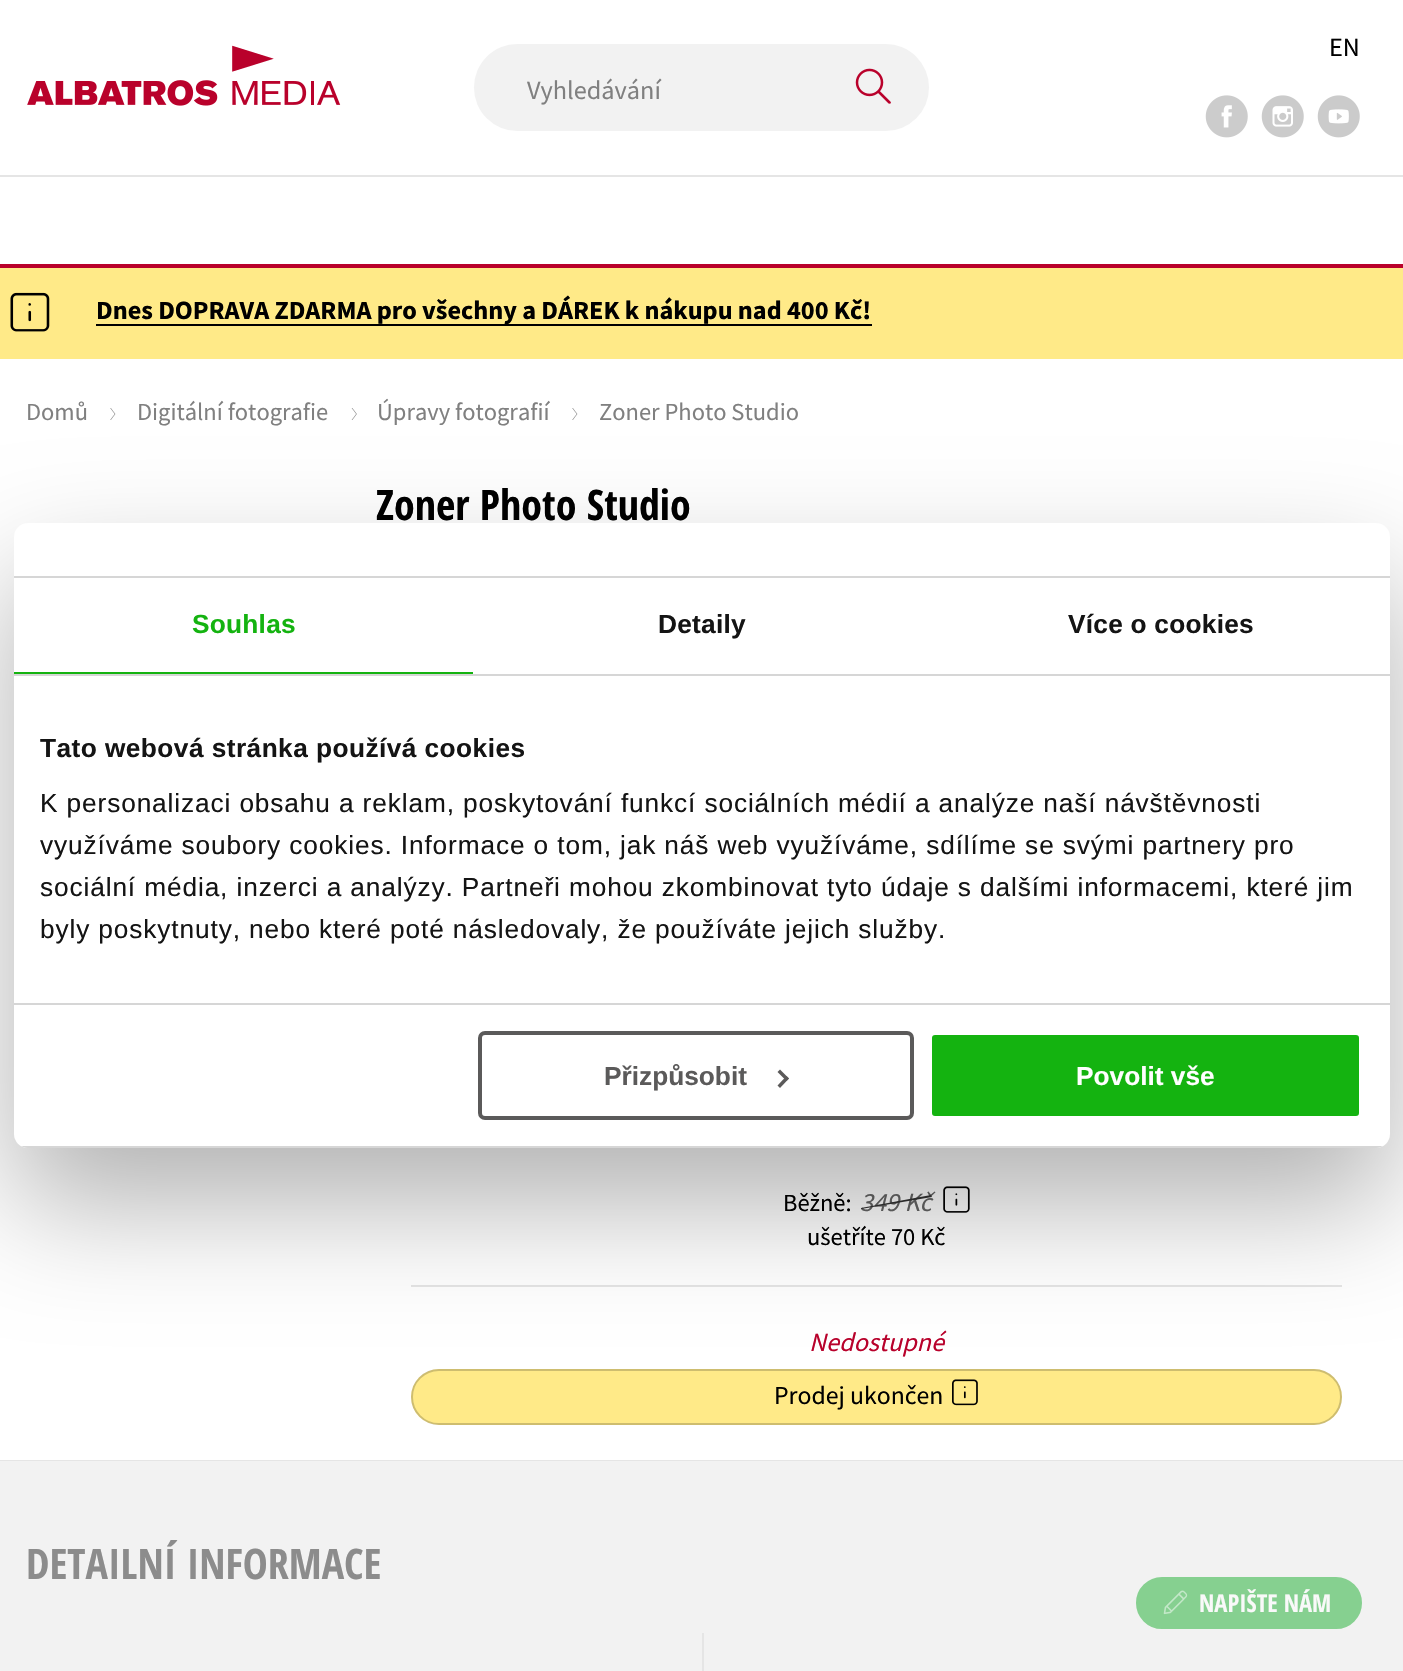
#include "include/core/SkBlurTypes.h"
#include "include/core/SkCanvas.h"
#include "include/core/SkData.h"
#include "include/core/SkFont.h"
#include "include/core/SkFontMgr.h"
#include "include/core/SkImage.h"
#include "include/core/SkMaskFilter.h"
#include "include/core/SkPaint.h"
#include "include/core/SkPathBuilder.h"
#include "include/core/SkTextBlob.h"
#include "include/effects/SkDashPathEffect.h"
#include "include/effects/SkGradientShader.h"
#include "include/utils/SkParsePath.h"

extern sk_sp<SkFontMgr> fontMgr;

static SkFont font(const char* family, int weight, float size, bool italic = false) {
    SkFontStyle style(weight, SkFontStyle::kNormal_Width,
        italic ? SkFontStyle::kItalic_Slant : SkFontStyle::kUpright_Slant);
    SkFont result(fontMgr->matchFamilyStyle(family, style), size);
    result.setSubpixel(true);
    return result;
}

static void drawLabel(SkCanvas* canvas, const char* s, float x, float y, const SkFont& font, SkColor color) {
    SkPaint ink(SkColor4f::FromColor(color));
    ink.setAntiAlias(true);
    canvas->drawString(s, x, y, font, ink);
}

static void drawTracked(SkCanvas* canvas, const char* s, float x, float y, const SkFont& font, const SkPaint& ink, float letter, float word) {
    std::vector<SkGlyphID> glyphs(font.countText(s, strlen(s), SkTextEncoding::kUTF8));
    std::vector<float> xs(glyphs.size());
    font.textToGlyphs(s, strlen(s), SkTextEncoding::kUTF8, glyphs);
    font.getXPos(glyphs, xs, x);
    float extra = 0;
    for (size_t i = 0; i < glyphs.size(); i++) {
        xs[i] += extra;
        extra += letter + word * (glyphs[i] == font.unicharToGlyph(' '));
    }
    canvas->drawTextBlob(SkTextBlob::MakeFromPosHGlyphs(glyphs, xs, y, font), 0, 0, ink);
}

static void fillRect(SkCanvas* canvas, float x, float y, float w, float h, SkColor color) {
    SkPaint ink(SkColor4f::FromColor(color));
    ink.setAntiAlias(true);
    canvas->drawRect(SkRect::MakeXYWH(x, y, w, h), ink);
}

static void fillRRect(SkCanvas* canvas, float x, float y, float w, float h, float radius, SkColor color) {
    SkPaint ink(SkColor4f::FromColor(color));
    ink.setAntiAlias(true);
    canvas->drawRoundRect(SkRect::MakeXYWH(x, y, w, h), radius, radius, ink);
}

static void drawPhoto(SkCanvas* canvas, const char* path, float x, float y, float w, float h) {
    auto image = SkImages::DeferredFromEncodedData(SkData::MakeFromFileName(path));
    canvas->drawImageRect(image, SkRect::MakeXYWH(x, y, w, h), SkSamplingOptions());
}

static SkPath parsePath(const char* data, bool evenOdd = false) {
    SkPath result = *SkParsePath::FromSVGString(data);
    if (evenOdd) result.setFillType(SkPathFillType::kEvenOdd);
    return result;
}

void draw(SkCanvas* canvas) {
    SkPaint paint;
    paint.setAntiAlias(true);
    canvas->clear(0xFFFFFFFF);
    drawPhoto(canvas, "assets/img1.png", 27, 45, 314, 61);
    fillRRect(canvas, 474, 44, 455, 87, 43.5f, 0xFFF2F2F2);
    SkFont font1 = font("Source Sans Pro", 400, 26.25f);
    drawLabel(canvas, "Vyhledávání", 527, 99, font1, 0xFF808080);
    drawPhoto(canvas, "assets/img2.png", 855, 68, 36, 36);
    drawLabel(canvas, "EN", 1329, 56, font1, 0xFF000000);
    drawPhoto(canvas, "assets/img3.png", 1205, 95, 43, 43);
    drawPhoto(canvas, "assets/img4.png", 1261, 95, 43, 43);
    drawPhoto(canvas, "assets/img5.png", 1317, 95, 43, 43);
    fillRect(canvas, 0, 175, 1403, 2, 0xFFE5E5E5);
    fillRect(canvas, 0, 264, 1403, 4, 0xFFB9012B);
    fillRect(canvas, 0, 268, 1403, 91, 0xFFFFEA88);
    drawPhoto(canvas, "assets/img6.png", 10, 292, 40, 40);
    fillRect(canvas, 96, 324, 776, 2, 0xFF000000);
    SkFont font2 = font("Source Sans Pro", 700, 26.25f);
    drawLabel(canvas, "Dnes DOPRAVA ZDARMA pro všechny a DÁREK k nákupu nad 400 Kč!", 96, 319, font2, 0xFF000000);
    fillRect(canvas, 0, 1460, 1403, 1, 0xFFE5E5E5);
    SkFont font3 = font("Source Sans Pro", 400, 24.5f);
    drawLabel(canvas, "Domů", 26, 420, font3, 0xFF808080);
    paint.setStroke(true);
    paint.setStrokeWidth(0.7f);
    paint.setColor(0xFF808080);
    canvas->drawPath(parsePath("M110.5 408L115 414L110.5 420"), paint);
    drawLabel(canvas, "Digitální fotografie", 137, 420, font3, 0xFF808080);
    canvas->drawPath(parsePath("M352 408L356.5 414L352 420"), paint);
    drawLabel(canvas, "Úpravy fotografií", 377, 420, font3, 0xFF808080);
    canvas->drawPath(parsePath("M572.5 408L577 414L572.5 420"), paint);
    drawLabel(canvas, "Zoner Photo Studio", 599, 420, font3, 0xFF808080);
    SkFont font4 = font("Open Sans Condensed", 700, 42);
    drawLabel(canvas, "Zoner Photo Studio", 376, 520, font4, 0xFF000000);
    drawLabel(canvas, "Běžně:", 783, 1211, font3, 0xFF000000);
    SkFont font5 = font("Source Sans Pro", 400, 26.25f, true);
    drawLabel(canvas, "349 Kč", 860, 1211, font5, 0xFF666666);
    paint.setStroke(false);
    paint.setColor(0xFF333333);
    canvas->drawPath(parsePath("M861 1208L931 1195L932 1197L861 1209Z"), paint);
    drawPhoto(canvas, "assets/img7.png", 943, 1186, 27, 27);
    drawLabel(canvas, "ušetříte 70 Kč", 807, 1245, font3, 0xFF000000);
    fillRect(canvas, 411, 1285, 931, 2, 0xFFE5E5E5);
    drawLabel(canvas, "Nedostupné", 809, 1351, font5, 0xFFB9012B);
    fillRRect(canvas, 411, 1369, 931, 56, 28, 0xFFFFEA88);
    paint.setStroke(true);
    paint.setStrokeWidth(2);
    paint.setColor(0x330B0B0B);
    canvas->drawRoundRect(SkRect::MakeXYWH(412, 1370, 929, 54), 27, 27, paint);
    SkFont font6 = font("Source Sans Pro", 400, 25.75f);
    drawLabel(canvas, "Prodej ukončen", 774, 1404, font6, 0xFF000000);
    drawPhoto(canvas, "assets/img8.png", 952, 1379, 26, 27);
    fillRect(canvas, 0, 1461, 1403, 210, 0xFFF2F2F2);
    drawLabel(canvas, "DETAILNÍ INFORMACE", 26, 1579, font4, 0xFF8C8C8C);
    fillRect(canvas, 702, 1633, 2, 38, 0xFFE5E5E5);
    paint.setStroke(false);
    paint.setColor(0x4D000000);
    paint.setMaskFilter(SkMaskFilter::MakeBlur(kNormal_SkBlurStyle, 59.5f));
    canvas->drawRoundRect(SkRect::MakeXYWH(14, 579, 1376, 625), 14, 14, paint);
    paint.setMaskFilter(nullptr);
    fillRRect(canvas, 14, 523, 1376, 625, 14, 0xFFFFFFFF);
    fillRect(canvas, 14, 576, 1376, 2, 0xFFD6D6D6);
    fillRect(canvas, 14, 674, 1376, 2, 0xFFD6D6D6);
    fillRect(canvas, 14, 672, 459, 2, 0xFF14B310);
    SkFont font7 = font("Liberation Sans", 700, 26.25f);
    paint.setColor(0xFF14B310);
    drawTracked(canvas, "Souhlas", 192, 633, font7, paint, 0.25f, 0);
    paint.setColor(0xFF141414);
    drawTracked(canvas, "Detaily", 658, 633, font7, paint, 0.25f, 0);
    drawTracked(canvas, "Více o cookies", 1068, 633, font7, paint, 0.25f, 0);
    fillRect(canvas, 14, 1003, 1376, 2, 0xFFD6D6D6);
    drawTracked(canvas, "Tato webová stránka používá cookies", 40, 757, font7, paint, 0.45f, 0);
    SkFont font8 = font("Liberation Sans", 400, 26.25f);
    drawTracked(canvas, "K personalizaci obsahu a reklam, poskytování funkcí sociálních médií a analýze naší návštěvnosti", 40, 812, font8, paint, 0.88f, 0);
    drawTracked(canvas, "využíváme soubory cookies. Informace o tom, jak náš web využíváme, sdílíme se svými partnery pro", 40, 854, font8, paint, 0.88f, 0);
    drawTracked(canvas, "sociální média, inzerci a analýzy. Partneři mohou zkombinovat tyto údaje s dalšími informacemi, které jim", 40, 896, font8, paint, 0.88f, 0);
    drawTracked(canvas, "byly poskytnuty, nebo které poté následovaly, že používáte jejich služby.", 40, 938, font8, paint, 0.88f, 0);
    canvas->save();
    canvas->clipPath(parsePath("M28 523H1376C1383.5 523 1390 529.5 1390 537V1134C1390 1141.5 1383.5 1148 1376 1148H28C20.5 1148 14 1141.5 14 1134V537C14 529.5 20.5 523 28 523Z"), true);
    fillRect(canvas, 14, 1146, 1376, 2, 0xFFD6D6D6);
    canvas->restore();
    paint.setStroke(true);
    paint.setStrokeWidth(4);
    paint.setColor(0xFF5B5A5A);
    canvas->drawRoundRect(SkRect::MakeXYWH(480, 1033, 432, 85), 5, 5, paint);
    drawLabel(canvas, "Přizpůsobit", 604, 1085, font7, 0xFF5B5A5A);
    paint.setStroke(false);
    canvas->drawPath(parsePath("M780 1069.5L789 1078.5L786.5 1081L777.5 1072Z"), paint);
    canvas->drawPath(parsePath("M786.5 1076L789 1078.5L780 1088L777.5 1085.5Z"), paint);
    paint.setColor(0xFF14B310);
    canvas->drawRoundRect(SkRect::MakeXYWH(930, 1033, 431, 85), 5, 5, paint);
    paint.setStroke(true);
    paint.setColor(0xFFFFFFFF);
    canvas->drawRoundRect(SkRect::MakeXYWH(930, 1033, 431, 85), 5, 5, paint);
    drawLabel(canvas, "Povolit vše", 1076, 1085, font7, 0xFFFFFFFF);
    paint.setStroke(false);
    paint.setColor(0xFF86D090);
    canvas->drawRoundRect(SkRect::MakeXYWH(1137, 1578, 224, 50), 25, 25, paint);
    paint.setStroke(true);
    paint.setStrokeWidth(2);
    canvas->drawRoundRect(SkRect::MakeXYWH(1137, 1578, 224, 50), 25, 25, paint);
    drawPhoto(canvas, "assets/img9.png", 1163, 1590, 25, 25);
    SkFont font9 = font("Open Sans Condensed", 700, 24.5f);
    drawLabel(canvas, "NAPIŠTE NÁM", 1199, 1612, font9, 0xFFF9F9F9);
}
